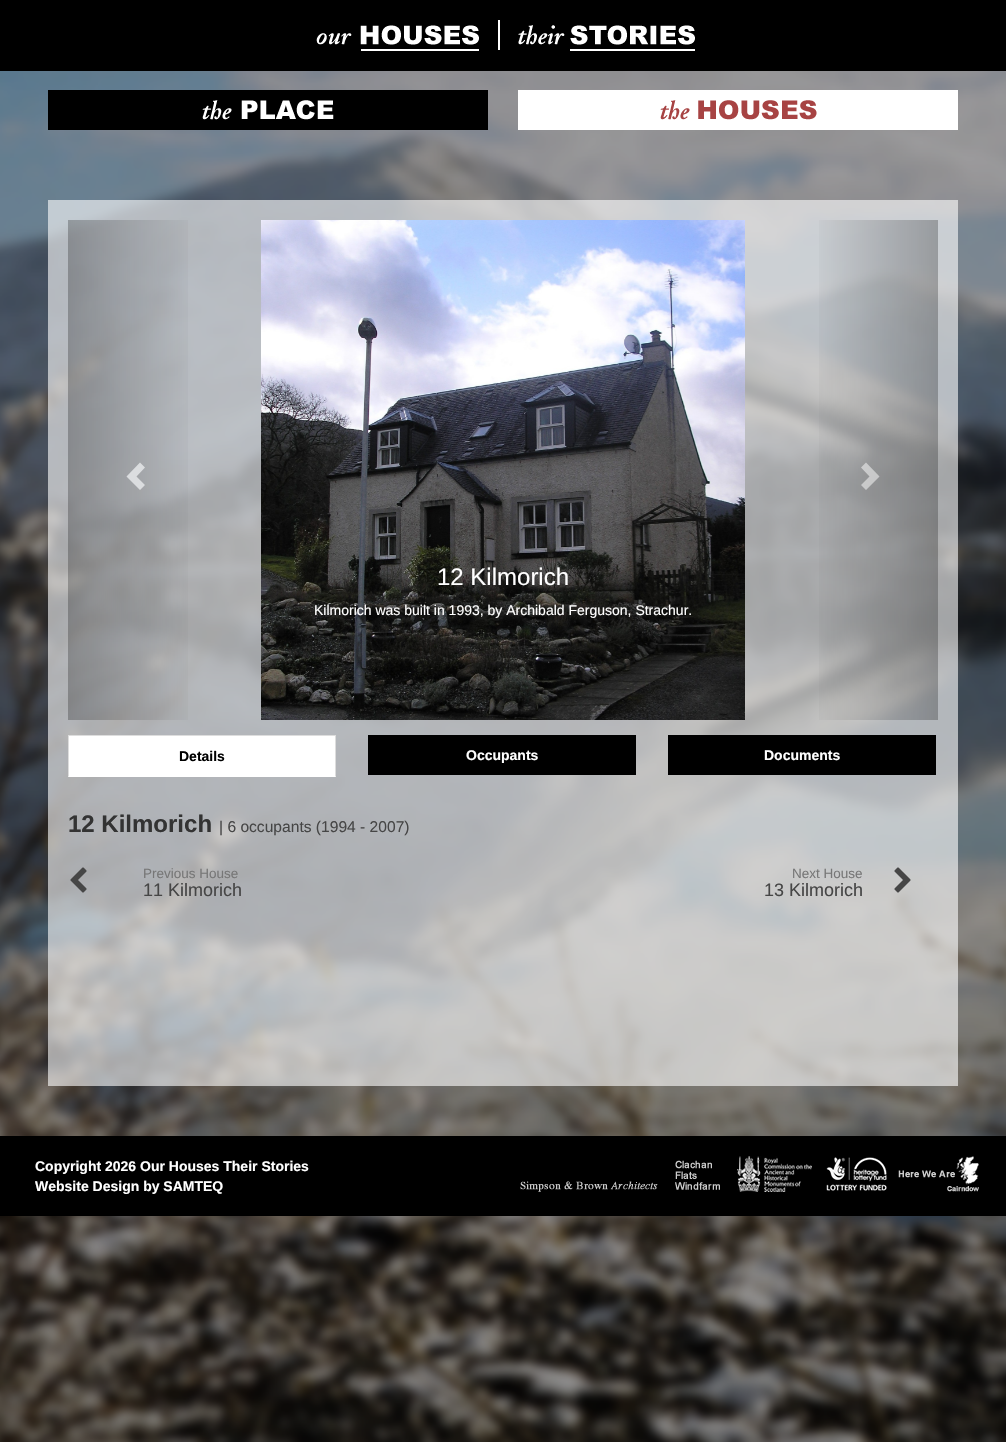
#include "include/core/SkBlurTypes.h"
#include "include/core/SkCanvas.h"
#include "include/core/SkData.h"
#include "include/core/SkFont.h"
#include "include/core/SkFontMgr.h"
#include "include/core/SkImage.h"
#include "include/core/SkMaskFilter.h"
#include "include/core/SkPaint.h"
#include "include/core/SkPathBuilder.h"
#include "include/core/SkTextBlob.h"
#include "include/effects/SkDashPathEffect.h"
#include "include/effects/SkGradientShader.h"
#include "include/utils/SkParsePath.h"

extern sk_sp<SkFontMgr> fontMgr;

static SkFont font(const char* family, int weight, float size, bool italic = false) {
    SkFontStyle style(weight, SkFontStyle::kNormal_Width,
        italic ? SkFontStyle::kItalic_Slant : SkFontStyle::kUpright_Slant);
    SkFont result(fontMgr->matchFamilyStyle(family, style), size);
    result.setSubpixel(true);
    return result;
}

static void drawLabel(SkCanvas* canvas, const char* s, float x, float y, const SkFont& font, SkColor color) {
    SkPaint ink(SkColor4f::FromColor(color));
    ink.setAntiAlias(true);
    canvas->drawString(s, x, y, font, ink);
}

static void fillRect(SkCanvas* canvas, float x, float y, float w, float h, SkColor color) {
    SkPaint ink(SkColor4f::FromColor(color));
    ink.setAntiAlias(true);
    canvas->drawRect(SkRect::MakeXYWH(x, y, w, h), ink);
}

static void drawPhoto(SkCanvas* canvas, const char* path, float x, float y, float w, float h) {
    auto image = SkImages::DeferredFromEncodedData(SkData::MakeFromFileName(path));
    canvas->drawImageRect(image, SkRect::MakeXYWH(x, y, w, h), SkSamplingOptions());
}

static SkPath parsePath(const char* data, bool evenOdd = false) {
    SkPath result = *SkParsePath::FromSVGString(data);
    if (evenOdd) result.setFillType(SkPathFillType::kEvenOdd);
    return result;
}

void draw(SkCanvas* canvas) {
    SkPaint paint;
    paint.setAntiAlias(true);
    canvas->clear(0xFFFFFFFF);
    drawPhoto(canvas, "assets/img1.png", 0, 1216, 1006, 226);
    drawPhoto(canvas, "assets/img2.png", 0, 71, 1006, 1065);
    fillRect(canvas, 0, 0, 1006, 71, 0xFF000000);
    drawPhoto(canvas, "assets/img3.png", 316, 20, 379, 31);
    fillRect(canvas, 48, 90, 440, 40, 0xFF000000);
    drawPhoto(canvas, "assets/img4.png", 202, 100, 132, 20);
    fillRect(canvas, 518, 90, 440, 40, 0xFFFFFFFF);
    drawPhoto(canvas, "assets/img5.png", 660, 100, 157, 20);
    fillRect(canvas, 48, 200, 910, 886, 0x99FFFFFF);
    {
        const SkColor colors[] = {0x40000000, 0x00000000};
        const float stops[] = {0, 1};
        const SkPoint ends[] = {{68, 470}, {199, 470}};
        paint.setShader(SkGradientShader::MakeLinear(ends, colors, stops, 2, SkTileMode::kClamp));
        paint.setAlpha(255);
    }
    canvas->drawRect(SkRect::MakeXYWH(68, 220, 120, 500), paint);
    paint.setShader(nullptr);
    paint.setColor(0xFFDBDDDF);
    canvas->drawPath(parsePath("M145 467.5L136.5 476.5L145 485L140 490L126.5 476.5L140 462.5Z"), paint);
    drawPhoto(canvas, "assets/img6.png", 261, 220, 484, 500);
    SkFont font1 = font("Liberation Sans", 400, 24);
    drawLabel(canvas, "12 Kilmorich", 437, 585, font1, 0xFFFFFFFF);
    SkFont font2 = font("Liberation Sans", 400, 14);
    drawLabel(canvas, "Kilmorich was built in 1993, by Archibald Ferguson, Strachur.", 314, 615, font2, 0xFFFFFFFF);
    {
        const SkColor colors[] = {0x00000000, 0x40000000};
        const float stops[] = {0, 1};
        const SkPoint ends[] = {{808, 470}, {938, 470}};
        paint.setShader(SkGradientShader::MakeLinear(ends, colors, stops, 2, SkTileMode::kClamp));
        paint.setAlpha(255);
    }
    canvas->drawRect(SkRect::MakeXYWH(819, 220, 119, 500), paint);
    paint.setShader(nullptr);
    paint.setColor(0x80FFFFFF);
    canvas->drawPath(parsePath("M879.5 476.5L866 490L861 485L869.5 476.5L861 467.5L866 462.5Z"), paint);
    fillRect(canvas, 68, 736, 268, 41, 0xFFFFFFFF);
    fillRect(canvas, 68, 735, 268, 1, 0xFFDDDDDD);
    paint.setColor(0xFFDDDDDD);
    canvas->drawPath(parsePath("M336 735V777L335 776V736Z"), paint);
    canvas->drawPath(parsePath("M68 777V735L69 736V776Z"), paint);
    SkFont font3 = font("Liberation Sans", 700, 14);
    drawLabel(canvas, "Details", 179, 761, font3, 0xFF000000);
    fillRect(canvas, 368, 735, 268, 40, 0xFF000000);
    drawLabel(canvas, "Occupants", 466, 760, font3, 0xFFFFFFFF);
    fillRect(canvas, 668, 735, 268, 40, 0xFF000000);
    drawLabel(canvas, "Documents", 764, 760, font3, 0xFFFFFFFF);
    SkFont font4 = font("Liberation Sans", 700, 24);
    drawLabel(canvas, "12 Kilmorich", 68, 832, font4, 0xFF333333);
    SkFont font5 = font("Liberation Sans", 400, 15.6f);
    drawLabel(canvas, "| 6 occupants (1994 - 2007)", 219, 832, font5, 0xFF464646);
    drawPhoto(canvas, "assets/img7.png", 70, 867, 17, 26);
    SkFont font6 = font("Liberation Sans", 400, 13.5f);
    drawLabel(canvas, "Previous House", 143, 878, font6, 0xFF777777);
    SkFont font7 = font("Liberation Sans", 400, 18);
    drawLabel(canvas, "11 Kilmorich", 143, 896, font7, 0xFF464646);
    drawLabel(canvas, "Next House", 792, 878, font6, 0xFF777777);
    drawLabel(canvas, "13 Kilmorich", 764, 896, font7, 0xFF464646);
    drawPhoto(canvas, "assets/img8.png", 894, 867, 17, 26);
    fillRect(canvas, 0, 1136, 1006, 80, 0xFF000000);
    drawLabel(canvas, "Copyright 2026 Our Houses Their Stories", 35, 1171, font3, 0xFFFFFFFF);
    drawLabel(canvas, "Website Design by SAMTEQ", 35, 1191, font3, 0xFFFFFFFF);
    drawPhoto(canvas, "assets/img9.png", 520, 1156, 459, 36);
}
